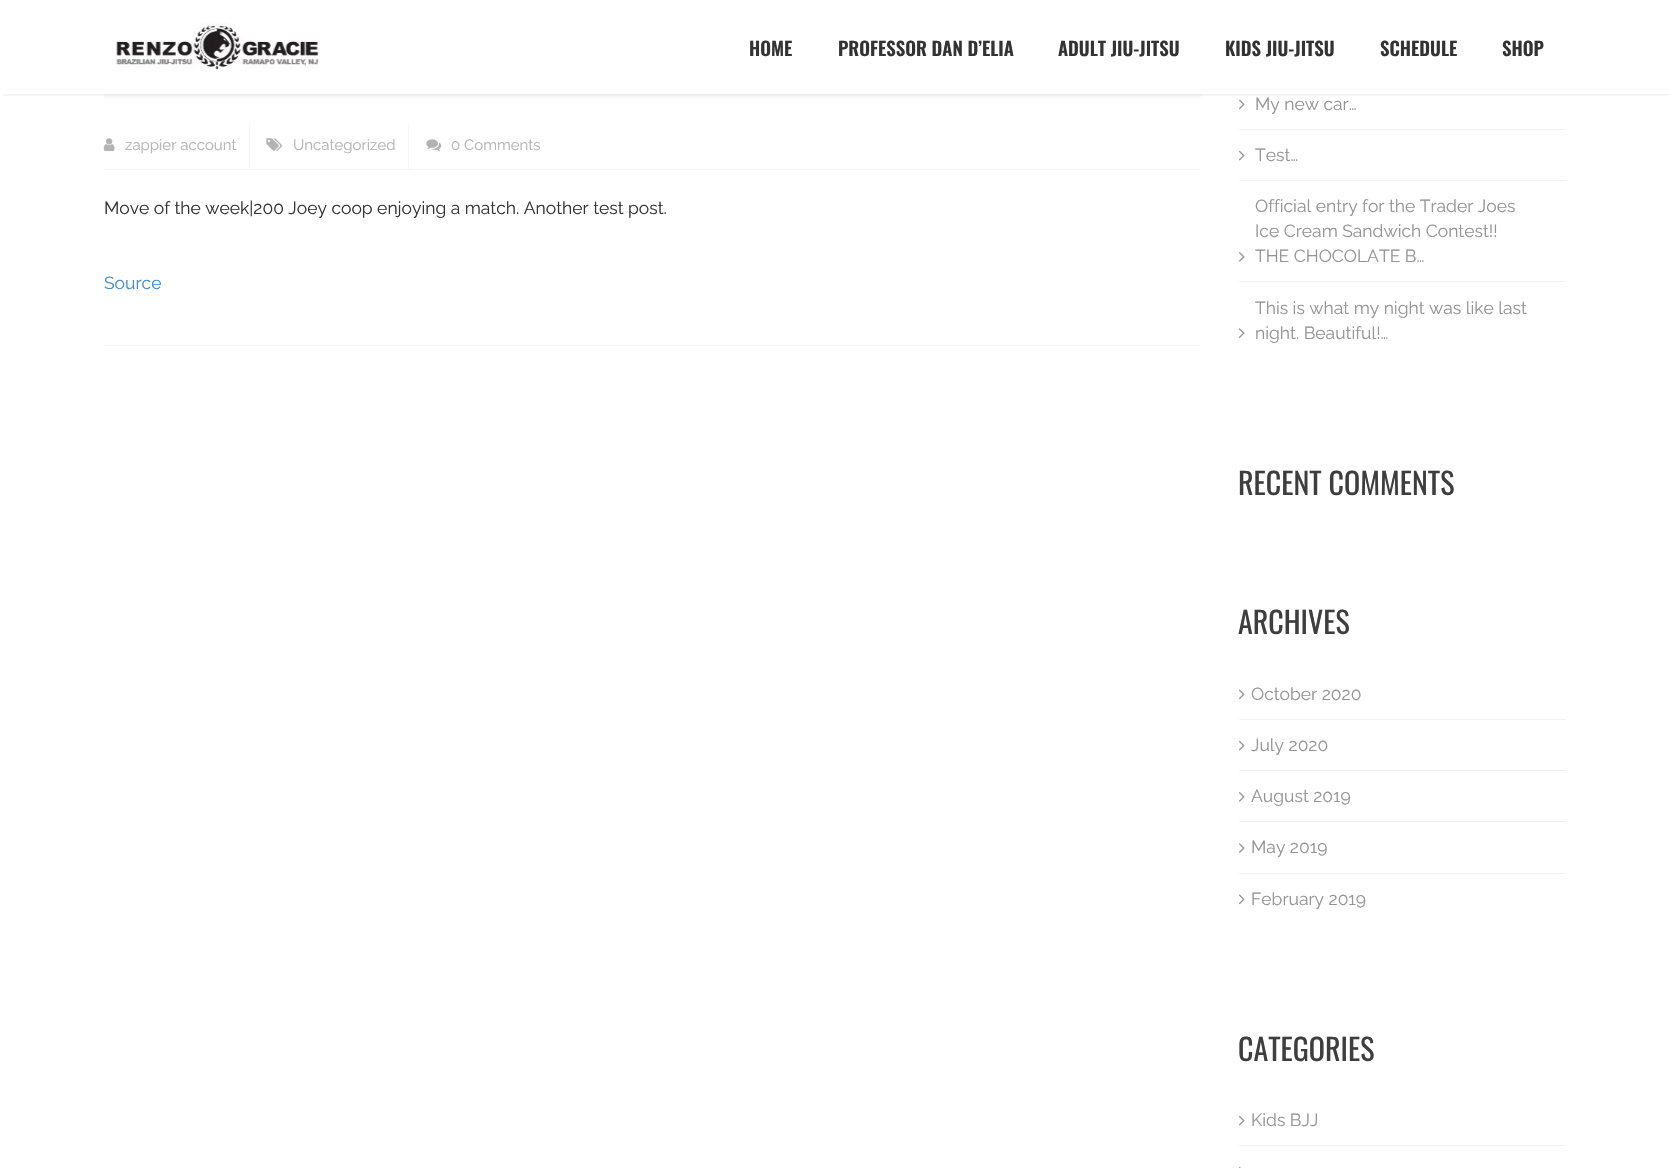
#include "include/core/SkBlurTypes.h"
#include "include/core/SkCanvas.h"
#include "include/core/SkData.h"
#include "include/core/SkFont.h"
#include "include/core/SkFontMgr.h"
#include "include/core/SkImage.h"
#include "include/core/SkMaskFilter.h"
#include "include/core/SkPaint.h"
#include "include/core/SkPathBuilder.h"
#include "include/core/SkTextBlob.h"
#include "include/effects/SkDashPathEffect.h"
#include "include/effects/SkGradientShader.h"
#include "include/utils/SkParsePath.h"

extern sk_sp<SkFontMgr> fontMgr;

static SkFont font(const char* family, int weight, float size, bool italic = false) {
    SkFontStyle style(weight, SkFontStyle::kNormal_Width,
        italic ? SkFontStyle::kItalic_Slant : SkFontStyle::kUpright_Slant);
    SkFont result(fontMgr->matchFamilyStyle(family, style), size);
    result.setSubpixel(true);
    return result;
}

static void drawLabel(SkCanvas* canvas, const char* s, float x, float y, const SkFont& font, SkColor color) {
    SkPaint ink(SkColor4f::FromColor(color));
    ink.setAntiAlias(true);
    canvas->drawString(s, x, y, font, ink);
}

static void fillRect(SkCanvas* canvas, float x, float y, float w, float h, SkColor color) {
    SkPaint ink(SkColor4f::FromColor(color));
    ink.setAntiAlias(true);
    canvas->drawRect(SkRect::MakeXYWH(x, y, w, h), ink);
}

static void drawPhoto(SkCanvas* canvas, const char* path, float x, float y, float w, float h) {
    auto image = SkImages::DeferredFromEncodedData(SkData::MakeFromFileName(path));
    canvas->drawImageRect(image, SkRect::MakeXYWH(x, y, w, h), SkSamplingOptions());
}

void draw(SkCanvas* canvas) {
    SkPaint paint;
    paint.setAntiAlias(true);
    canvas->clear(0xFFFFFFFF);
    fillRect(canvas, 104, 0, 1097, 98, 0xFFF8F8F8);
    fillRect(canvas, 1239, 78, 327, 1, 0xFFF1F1F1);
    drawPhoto(canvas, "assets/img5.png", 1239, 48, 6, 10);
    drawPhoto(canvas, "assets/img6.png", 1239, 99, 6, 11);
    canvas->save();
    canvas->clipRect(SkRect::MakeXYWH(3, 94, 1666, 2));
    paint.setColor(0x0D000000);
    paint.setMaskFilter(SkMaskFilter::MakeBlur(kNormal_SkBlurStyle, 1));
    canvas->drawRect(SkRect::MakeXYWH(3, 3, 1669, 93), paint);
    paint.setMaskFilter(nullptr);
    canvas->restore();
    fillRect(canvas, 4, 0, 1665, 94, 0xF2FFFFFF);
    drawPhoto(canvas, "assets/img1.png", 116, 16, 203, 61);
    SkFont font1 = font("Oswald", 600, 18.75f);
    drawLabel(canvas, "HOME", 749, 56, font1, 0xFF333333);
    drawLabel(canvas, "PROFESSOR DAN D’ELIA", 838, 56, font1, 0xFF333333);
    drawLabel(canvas, "ADULT JIU-JITSU", 1058, 56, font1, 0xFF333333);
    drawLabel(canvas, "KIDS JIU-JITSU", 1225, 56, font1, 0xFF333333);
    drawLabel(canvas, "SCHEDULE", 1380, 56, font1, 0xFF333333);
    drawLabel(canvas, "SHOP", 1502, 56, font1, 0xFF333333);
    fillRect(canvas, 104, 345, 1097, 1, 0xFFF5F5F5);
    fillRect(canvas, 104, 169, 1097, 1, 0xFFF5F5F5);
    fillRect(canvas, 249, 123, 1, 46, 0xFFF5F5F5);
    drawPhoto(canvas, "assets/img2.png", 103, 138, 12, 14);
    SkFont font2 = font("Raleway", 100, 15);
    drawLabel(canvas, "zappier account", 125, 150, font2, 0xFFB3B3B3);
    fillRect(canvas, 408, 123, 1, 46, 0xFFF5F5F5);
    drawPhoto(canvas, "assets/img3.png", 266, 138, 17, 13);
    drawLabel(canvas, "Uncategorized", 293, 150, font2, 0xFFB3B3B3);
    drawPhoto(canvas, "assets/img4.png", 426, 139, 16, 12);
    drawLabel(canvas, "0 Comments", 451, 150, font2, 0xFFB3B3B3);
    SkFont font3 = font("Raleway", 100, 17.5f);
    drawLabel(canvas, "Move of the week|200 Joey coop enjoying a match. Another test post.", 104, 214, font3, 0xFF333333);
    drawLabel(canvas, "Source", 104, 289, font3, 0xFF428BCA);
    fillRect(canvas, 1239, 129, 327, 1, 0xFFF1F1F1);
    drawLabel(canvas, "My new car…", 1255, 110, font3, 0xFF959494);
    fillRect(canvas, 1239, 180, 327, 1, 0xFFF1F1F1);
    drawPhoto(canvas, "assets/img7.png", 1239, 150, 6, 11);
    drawLabel(canvas, "Test…", 1255, 161, font3, 0xFF959494);
    fillRect(canvas, 1239, 281, 327, 1, 0xFFF1F1F1);
    drawPhoto(canvas, "assets/img8.png", 1239, 252, 6, 10);
    drawLabel(canvas, "Official entry for the Trader Joes", 1255, 212, font3, 0xFF959494);
    drawLabel(canvas, "Ice Cream Sandwich Contest!!", 1255, 237, font3, 0xFF959494);
    drawLabel(canvas, "THE CHOCOLATE B…", 1255, 262, font3, 0xFF959494);
    drawPhoto(canvas, "assets/img5.png", 1239, 328, 6, 10);
    drawLabel(canvas, "This is what my night was like last", 1255, 314, font3, 0xFF959494);
    drawLabel(canvas, "night. Beautiful!…", 1255, 339, font3, 0xFF959494);
    SkFont font4 = font("Oswald", 400, 30);
    drawLabel(canvas, "RECENT COMMENTS", 1238, 495, font4, 0xFF3E3E3E);
    drawLabel(canvas, "ARCHIVES", 1238, 634, font4, 0xFF3E3E3E);
    fillRect(canvas, 1239, 719, 327, 1, 0xFFF1F1F1);
    drawPhoto(canvas, "assets/img6.png", 1239, 689, 6, 11);
    drawLabel(canvas, "October 2020", 1251, 700, font3, 0xFF959494);
    fillRect(canvas, 1239, 770, 327, 1, 0xFFF1F1F1);
    drawPhoto(canvas, "assets/img7.png", 1239, 740, 6, 11);
    drawLabel(canvas, "July 2020", 1251, 751, font3, 0xFF959494);
    fillRect(canvas, 1239, 821, 327, 1, 0xFFF1F1F1);
    drawPhoto(canvas, "assets/img8.png", 1239, 792, 6, 10);
    drawLabel(canvas, "August 2019", 1251, 802, font3, 0xFF959494);
    fillRect(canvas, 1239, 873, 327, 1, 0xFFF1F1F1);
    drawPhoto(canvas, "assets/img5.png", 1239, 843, 6, 10);
    drawLabel(canvas, "May 2019", 1251, 853, font3, 0xFF959494);
    drawPhoto(canvas, "assets/img6.png", 1239, 894, 6, 11);
    drawLabel(canvas, "February 2019", 1251, 905, font3, 0xFF959494);
    drawLabel(canvas, "CATEGORIES", 1238, 1061, font4, 0xFF3E3E3E);
    fillRect(canvas, 1239, 1145, 327, 1, 0xFFF1F1F1);
    drawPhoto(canvas, "assets/img7.png", 1239, 1115, 6, 11);
    drawLabel(canvas, "Kids BJJ", 1251, 1126, font3, 0xFF959494);
    drawPhoto(canvas, "assets/img9.png", 1239, 1167, 2, 1);
}
